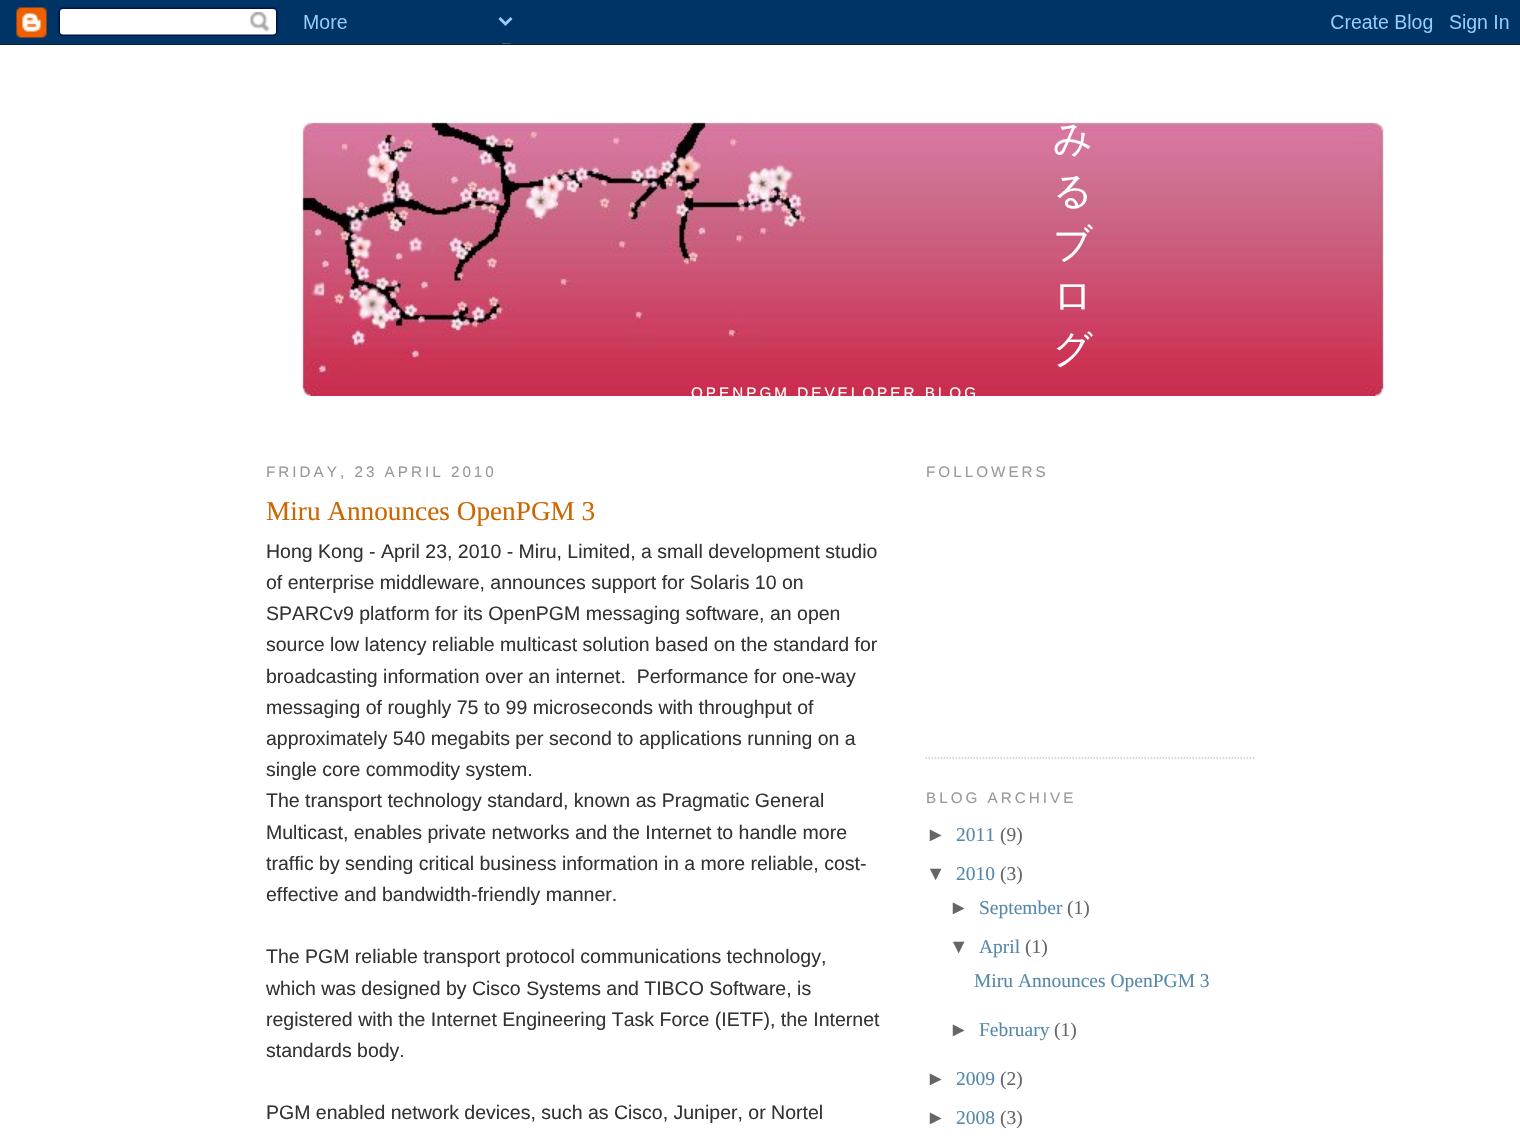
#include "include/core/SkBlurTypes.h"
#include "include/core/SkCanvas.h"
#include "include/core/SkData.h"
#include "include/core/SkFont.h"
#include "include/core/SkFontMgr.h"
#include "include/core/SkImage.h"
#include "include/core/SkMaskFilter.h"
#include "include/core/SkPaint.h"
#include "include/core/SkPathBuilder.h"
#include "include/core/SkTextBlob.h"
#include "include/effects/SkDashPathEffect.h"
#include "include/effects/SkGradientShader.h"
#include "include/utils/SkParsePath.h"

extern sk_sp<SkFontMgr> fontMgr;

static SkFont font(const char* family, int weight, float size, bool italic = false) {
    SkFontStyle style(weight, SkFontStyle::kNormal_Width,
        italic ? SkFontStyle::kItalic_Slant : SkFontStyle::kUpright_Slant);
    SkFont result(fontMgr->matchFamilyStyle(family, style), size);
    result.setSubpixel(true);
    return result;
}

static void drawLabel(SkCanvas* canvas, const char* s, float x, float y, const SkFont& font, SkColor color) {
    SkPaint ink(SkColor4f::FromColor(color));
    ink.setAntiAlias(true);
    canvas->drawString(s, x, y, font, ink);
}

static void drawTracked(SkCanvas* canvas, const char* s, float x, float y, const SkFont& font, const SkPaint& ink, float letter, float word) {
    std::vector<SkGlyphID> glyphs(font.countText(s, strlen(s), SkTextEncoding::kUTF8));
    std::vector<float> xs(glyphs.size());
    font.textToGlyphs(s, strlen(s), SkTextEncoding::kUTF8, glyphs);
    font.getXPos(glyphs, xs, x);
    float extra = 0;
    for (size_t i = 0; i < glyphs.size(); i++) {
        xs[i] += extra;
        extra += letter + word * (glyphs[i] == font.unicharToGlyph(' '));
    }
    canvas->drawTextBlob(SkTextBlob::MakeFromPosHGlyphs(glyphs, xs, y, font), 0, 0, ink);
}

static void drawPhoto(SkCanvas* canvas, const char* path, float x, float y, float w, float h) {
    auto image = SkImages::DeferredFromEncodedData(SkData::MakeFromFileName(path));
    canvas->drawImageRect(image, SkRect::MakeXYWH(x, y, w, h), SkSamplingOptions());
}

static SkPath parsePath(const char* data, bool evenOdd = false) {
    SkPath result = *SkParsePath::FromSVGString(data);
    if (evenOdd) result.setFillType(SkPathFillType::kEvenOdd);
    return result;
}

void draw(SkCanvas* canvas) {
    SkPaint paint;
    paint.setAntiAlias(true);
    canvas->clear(0xFFFFFFFF);
    drawPhoto(canvas, "assets/img1.png", 0, 0, 1520, 45);
    drawPhoto(canvas, "assets/img2.png", 302, 121, 1083, 275);
    SkFont font1 = font("WenQuanYi Zen Hei", 500, 39);
    paint.setColor(0xFFFFFFFF);
    drawTracked(canvas, "み", 1053, 152, font1, paint, 8, 0);
    drawTracked(canvas, "る", 1053, 204, font1, paint, 8, 0);
    drawTracked(canvas, "ブ", 1053, 257, font1, paint, 8, 0);
    drawTracked(canvas, "ロ", 1053, 309, font1, paint, 8, 0);
    drawTracked(canvas, "グ", 1053, 362, font1, paint, 8, 0);
    SkFont font2 = font("Liberation Sans", 400, 15.25f);
    drawTracked(canvas, "OPENPGM DEVELOPER BLOG", 691, 398, font2, paint, 3, 0);
    paint.setColor(0xFF999999);
    drawTracked(canvas, "FRIDAY, 23 APRIL 2010", 266, 477, font2, paint, 3, 0);
    SkFont font3 = font("Liberation Serif", 400, 27.25f);
    drawLabel(canvas, "Miru Announces OpenPGM 3", 266, 520, font3, 0xFFCC6600);
    SkFont font4 = font("Liberation Sans", 400, 19.5f);
    drawLabel(canvas, "Hong Kong - April 23, 2010 - Miru, Limited, a small development studio", 266, 558, font4, 0xFF333333);
    drawLabel(canvas, "of enterprise middleware, announces support for Solaris 10 on", 266, 589, font4, 0xFF333333);
    drawLabel(canvas, "SPARCv9 platform for its OpenPGM messaging software, an open", 266, 620, font4, 0xFF333333);
    drawLabel(canvas, "source low latency reliable multicast solution based on the standard for", 266, 651, font4, 0xFF333333);
    drawLabel(canvas, "broadcasting information over an internet.  Performance for one-way", 266, 683, font4, 0xFF333333);
    drawLabel(canvas, "messaging of roughly 75 to 99 microseconds with throughput of", 266, 714, font4, 0xFF333333);
    drawLabel(canvas, "approximately 540 megabits per second to applications running on a", 266, 745, font4, 0xFF333333);
    drawLabel(canvas, "single core commodity system.", 266, 776, font4, 0xFF333333);
    drawLabel(canvas, "The transport technology standard, known as Pragmatic General", 266, 807, font4, 0xFF333333);
    drawLabel(canvas, "Multicast, enables private networks and the Internet to handle more", 266, 839, font4, 0xFF333333);
    drawLabel(canvas, "traffic by sending critical business information in a more reliable, cost-", 266, 870, font4, 0xFF333333);
    drawLabel(canvas, "effective and bandwidth-friendly manner.", 266, 901, font4, 0xFF333333);
    drawLabel(canvas, "The PGM reliable transport protocol communications technology,", 266, 963, font4, 0xFF333333);
    drawLabel(canvas, "which was designed by Cisco Systems and TIBCO Software, is", 266, 995, font4, 0xFF333333);
    drawLabel(canvas, "registered with the Internet Engineering Task Force (IETF), the Internet", 266, 1026, font4, 0xFF333333);
    drawLabel(canvas, "standards body.", 266, 1057, font4, 0xFF333333);
    drawLabel(canvas, "PGM enabled network devices, such as Cisco, Juniper, or Nortel", 266, 1119, font4, 0xFF333333);
    paint.setStroke(true);
    paint.setStrokeWidth(1.5f);
    paint.setColor(0xFFCCCCCC);
    paint.setPathEffect(SkDashPathEffect::Make({{1.5f, 1.5f}}, 0));
    canvas->drawPath(parsePath("M925.5 758H1255.5"), paint);
    paint.setPathEffect(nullptr);
    paint.setStroke(false);
    paint.setColor(0xFF999999);
    drawTracked(canvas, "FOLLOWERS", 926, 477, font2, paint, 3, 0);
    drawTracked(canvas, "BLOG ARCHIVE", 926, 803, font2, paint, 3, 0);
    drawLabel(canvas, "►", 926, 841, font4, 0xFF666666);
    SkFont font5 = font("Liberation Serif", 400, 19.5f);
    drawLabel(canvas, "2011", 956, 841, font5, 0xFF5588AA);
    drawLabel(canvas, "(9)", 1000, 841, font5, 0xFF666666);
    drawLabel(canvas, "▼", 926, 880, font4, 0xFF666666);
    drawLabel(canvas, "2010", 956, 880, font5, 0xFF5588AA);
    drawLabel(canvas, "(3)", 1000, 880, font5, 0xFF666666);
    drawLabel(canvas, "►", 949, 914, font4, 0xFF666666);
    drawLabel(canvas, "September", 979, 914, font5, 0xFF5588AA);
    drawLabel(canvas, "(1)", 1067, 914, font5, 0xFF666666);
    drawLabel(canvas, "▼", 949, 953, font4, 0xFF666666);
    drawLabel(canvas, "April", 979, 953, font5, 0xFF5588AA);
    drawLabel(canvas, "(1)", 1025, 953, font5, 0xFF666666);
    drawLabel(canvas, "Miru Announces OpenPGM 3", 974, 987, font5, 0xFF5588AA);
    drawLabel(canvas, "►", 949, 1036, font4, 0xFF666666);
    drawLabel(canvas, "February", 979, 1036, font5, 0xFF5588AA);
    drawLabel(canvas, "(1)", 1054, 1036, font5, 0xFF666666);
    drawLabel(canvas, "►", 926, 1085, font4, 0xFF666666);
    drawLabel(canvas, "2009", 956, 1085, font5, 0xFF5588AA);
    drawLabel(canvas, "(2)", 1000, 1085, font5, 0xFF666666);
    drawLabel(canvas, "►", 926, 1124, font4, 0xFF666666);
    drawLabel(canvas, "2008", 956, 1124, font5, 0xFF5588AA);
    drawLabel(canvas, "(3)", 1000, 1124, font5, 0xFF666666);
}
